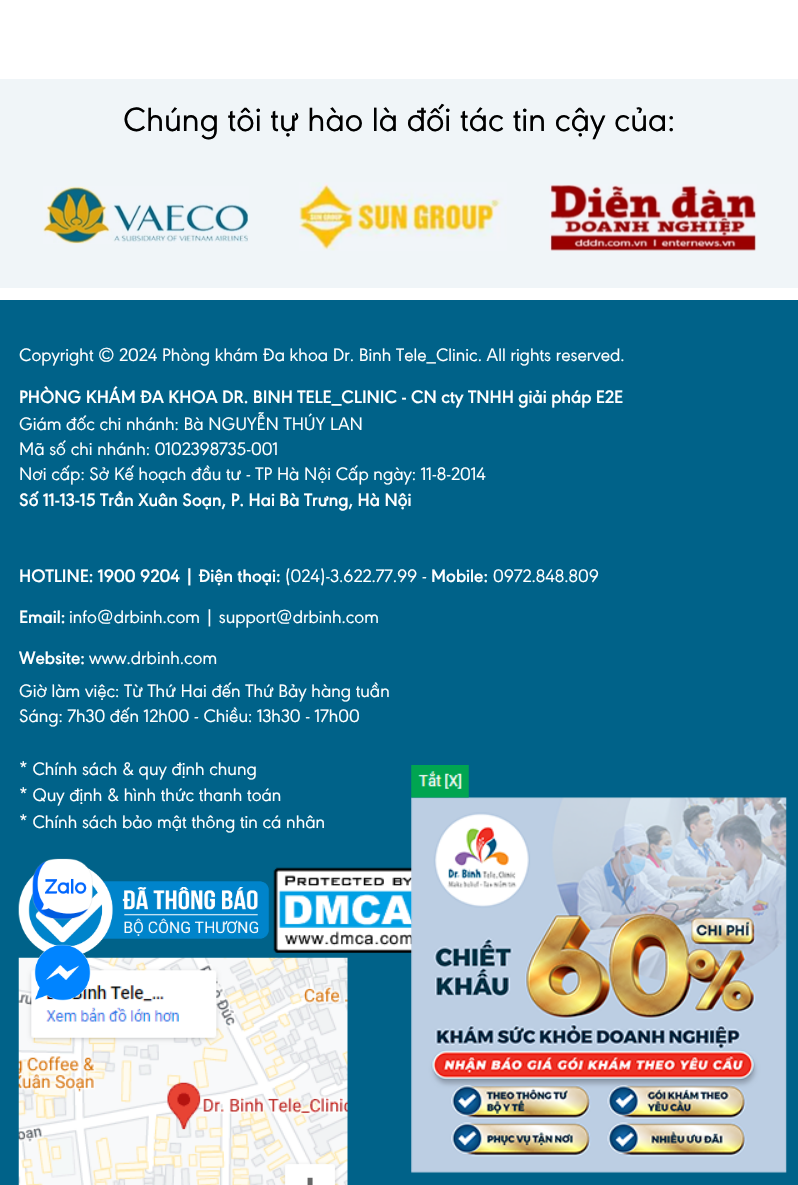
#include "include/core/SkBlurTypes.h"
#include "include/core/SkCanvas.h"
#include "include/core/SkData.h"
#include "include/core/SkFont.h"
#include "include/core/SkFontMgr.h"
#include "include/core/SkImage.h"
#include "include/core/SkMaskFilter.h"
#include "include/core/SkPaint.h"
#include "include/core/SkPathBuilder.h"
#include "include/core/SkTextBlob.h"
#include "include/effects/SkDashPathEffect.h"
#include "include/effects/SkGradientShader.h"
#include "include/utils/SkParsePath.h"

extern sk_sp<SkFontMgr> fontMgr;

static SkFont font(const char* family, int weight, float size, bool italic = false) {
    SkFontStyle style(weight, SkFontStyle::kNormal_Width,
        italic ? SkFontStyle::kItalic_Slant : SkFontStyle::kUpright_Slant);
    SkFont result(fontMgr->matchFamilyStyle(family, style), size);
    result.setSubpixel(true);
    return result;
}

static void drawLabel(SkCanvas* canvas, const char* s, float x, float y, const SkFont& font, SkColor color) {
    SkPaint ink(SkColor4f::FromColor(color));
    ink.setAntiAlias(true);
    canvas->drawString(s, x, y, font, ink);
}

static void fillRect(SkCanvas* canvas, float x, float y, float w, float h, SkColor color) {
    SkPaint ink(SkColor4f::FromColor(color));
    ink.setAntiAlias(true);
    canvas->drawRect(SkRect::MakeXYWH(x, y, w, h), ink);
}

static void drawPhoto(SkCanvas* canvas, const char* path, float x, float y, float w, float h) {
    auto image = SkImages::DeferredFromEncodedData(SkData::MakeFromFileName(path));
    canvas->drawImageRect(image, SkRect::MakeXYWH(x, y, w, h), SkSamplingOptions());
}

void draw(SkCanvas* canvas) {
    SkPaint paint;
    paint.setAntiAlias(true);
    canvas->clear(0xFFFFFFFF);
    fillRect(canvas, 0, 79, 798, 209, 0xFFF0F5F8);
    SkFont font1 = font("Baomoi", 400, 35);
    drawLabel(canvas, "Chúng tôi tự hào là đối tác tin cậy của:", 123, 131, font1, 0xFF000000);
    drawPhoto(canvas, "assets/img1.png", 43, 186, 206, 58);
    drawPhoto(canvas, "assets/img2.png", 299, 182, 208, 69);
    drawPhoto(canvas, "assets/img3.png", 549, 184, 208, 67);
    fillRect(canvas, 0, 300, 798, 885, 0xFF006289);
    SkFont font2 = font("Baomoi", 400, 18.75f);
    drawLabel(canvas, "Copyright © 2024 Phòng khám Đa khoa Dr. Binh Tele_Clinic. All rights reserved.", 19, 361, font2, 0xFFFFFFFF);
    SkFont font3 = font("Baomoi", 600, 18.75f);
    drawLabel(canvas, "PHÒNG KHÁM ĐA KHOA DR. BINH TELE_CLINIC - CN cty TNHH giải pháp E2E", 19, 403, font3, 0xFFFFFFFF);
    drawLabel(canvas, "Giám đốc chi nhánh: Bà NGUYỄN THÚY LAN", 19, 430, font2, 0xFFFFFFFF);
    drawLabel(canvas, "Mã số chi nhánh: 0102398735-001", 19, 455, font2, 0xFFFFFFFF);
    drawLabel(canvas, "Nơi cấp: Sở Kế hoạch đầu tư - TP Hà Nội Cấp ngày: 11-8-2014", 19, 480, font2, 0xFFFFFFFF);
    drawLabel(canvas, "Số 11-13-15 Trần Xuân Soạn, P. Hai Bà Trưng, Hà Nội", 19, 506, font3, 0xFFFFFFFF);
    drawLabel(canvas, "HOTLINE: 1900 9204 | Điện thoại:", 19, 582, font3, 0xFFFFFFFF);
    drawLabel(canvas, "(024)-3.622.77.99 -", 285, 582, font2, 0xFFFFFFFF);
    drawLabel(canvas, "Mobile:", 431, 582, font3, 0xFFFFFFFF);
    drawLabel(canvas, "0972.848.809", 493, 582, font2, 0xFFFFFFFF);
    drawLabel(canvas, "Email:", 19, 623, font3, 0xFFFFFFFF);
    drawLabel(canvas, "info@drbinh.com | support@drbinh.com", 69, 623, font2, 0xFFFFFFFF);
    drawLabel(canvas, "Website:", 19, 664, font3, 0xFFFFFFFF);
    drawLabel(canvas, "www.drbinh.com", 89, 664, font2, 0xFFFFFFFF);
    drawLabel(canvas, "Giờ làm việc: Từ Thứ Hai đến Thứ Bảy hàng tuần", 19, 697, font2, 0xFFFFFFFF);
    drawLabel(canvas, "Sáng: 7h30 đến 12h00 - Chiều: 13h30 - 17h00", 19, 722, font2, 0xFFFFFFFF);
    drawLabel(canvas, "* Chính sách & quy định chung", 19, 775, font2, 0xFFFFFFFF);
    drawLabel(canvas, "* Quy định & hình thức thanh toán", 19, 801, font2, 0xFFFFFFFF);
    drawLabel(canvas, "* Chính sách bảo mật thông tin cá nhân", 19, 828, font2, 0xFFFFFFFF);
    drawPhoto(canvas, "assets/img4.png", 18, 866, 251, 89);
    drawPhoto(canvas, "assets/img5.png", 273, 867, 140, 86);
    drawPhoto(canvas, "assets/img6.png", 18, 957, 330, 228);
    drawPhoto(canvas, "assets/img7.png", 32, 858, 61, 62);
    drawPhoto(canvas, "assets/img9.png", 411, 797, 376, 376);
    drawPhoto(canvas, "assets/img8.png", 411, 765, 58, 33);
    drawPhoto(canvas, "assets/img10.png", 34, 944, 57, 57);
}
